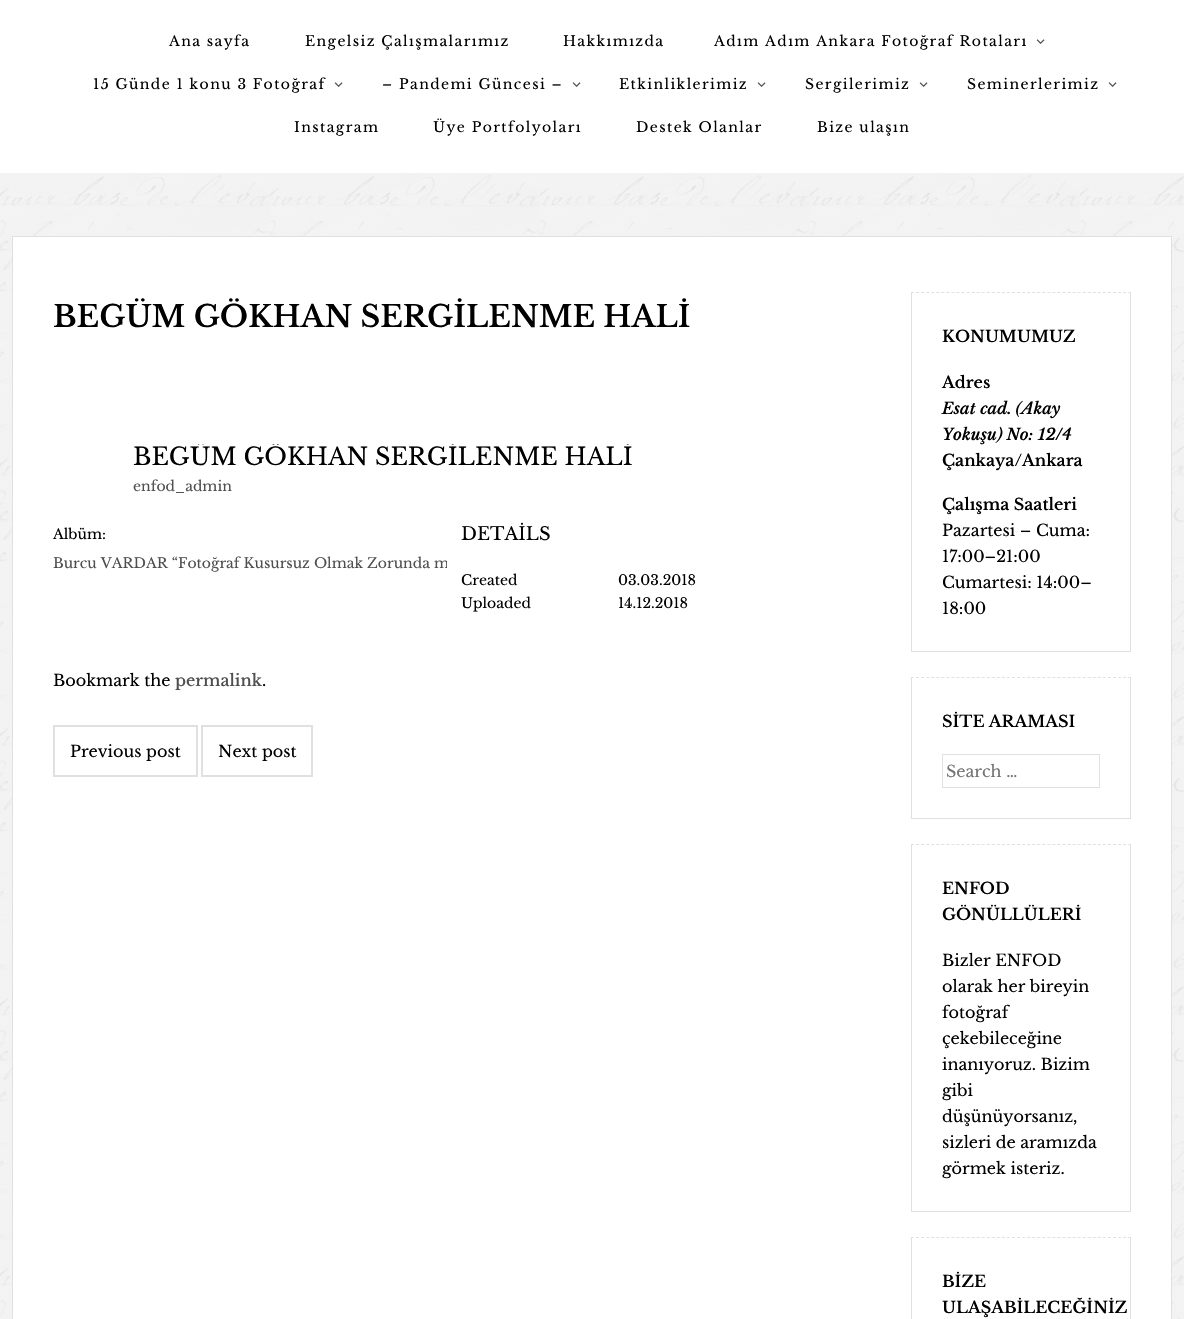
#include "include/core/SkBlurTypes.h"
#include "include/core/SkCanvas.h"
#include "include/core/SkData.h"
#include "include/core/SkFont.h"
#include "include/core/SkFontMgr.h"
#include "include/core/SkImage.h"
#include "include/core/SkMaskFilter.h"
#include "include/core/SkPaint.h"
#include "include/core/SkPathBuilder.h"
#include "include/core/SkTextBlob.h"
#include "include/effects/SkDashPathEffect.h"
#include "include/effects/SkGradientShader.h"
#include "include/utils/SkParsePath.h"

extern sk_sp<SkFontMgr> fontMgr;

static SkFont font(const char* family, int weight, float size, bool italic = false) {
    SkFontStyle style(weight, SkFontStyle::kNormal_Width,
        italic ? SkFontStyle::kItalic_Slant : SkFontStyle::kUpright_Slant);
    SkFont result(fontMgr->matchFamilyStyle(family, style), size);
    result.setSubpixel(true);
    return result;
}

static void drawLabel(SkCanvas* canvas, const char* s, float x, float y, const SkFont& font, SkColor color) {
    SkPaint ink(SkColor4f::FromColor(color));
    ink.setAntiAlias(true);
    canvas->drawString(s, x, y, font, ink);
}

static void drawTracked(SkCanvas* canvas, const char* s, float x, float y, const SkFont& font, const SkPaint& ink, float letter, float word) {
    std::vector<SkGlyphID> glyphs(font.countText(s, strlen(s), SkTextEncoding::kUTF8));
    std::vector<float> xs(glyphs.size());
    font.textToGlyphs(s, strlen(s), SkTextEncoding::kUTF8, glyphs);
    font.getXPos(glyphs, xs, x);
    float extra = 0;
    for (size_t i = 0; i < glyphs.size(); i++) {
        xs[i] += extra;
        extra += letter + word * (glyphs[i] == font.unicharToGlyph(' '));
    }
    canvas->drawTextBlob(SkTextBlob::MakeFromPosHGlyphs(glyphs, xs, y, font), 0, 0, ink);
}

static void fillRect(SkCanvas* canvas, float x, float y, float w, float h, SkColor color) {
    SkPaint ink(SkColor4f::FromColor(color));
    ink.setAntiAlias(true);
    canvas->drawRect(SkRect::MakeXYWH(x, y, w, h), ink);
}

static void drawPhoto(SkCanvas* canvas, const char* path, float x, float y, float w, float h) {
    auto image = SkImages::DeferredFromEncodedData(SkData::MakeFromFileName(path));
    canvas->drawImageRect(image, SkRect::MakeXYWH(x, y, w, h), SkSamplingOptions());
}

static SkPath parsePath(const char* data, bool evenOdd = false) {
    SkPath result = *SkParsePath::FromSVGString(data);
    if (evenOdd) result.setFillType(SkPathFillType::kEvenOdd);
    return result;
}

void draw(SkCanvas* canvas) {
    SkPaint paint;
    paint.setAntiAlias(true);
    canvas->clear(0xFFF6F6F6);
    drawPhoto(canvas, "assets/img1.png", 0, 173, 1184, 1146);
    fillRect(canvas, 0, 0, 1184, 173, 0xFFFFFFFF);
    SkFont font1 = font("Libre Baskerville", 400, 14);
    paint.setColor(0xFF000000);
    drawTracked(canvas, "Ana sayfa", 169, 46, font1, paint, 1.4f, 0);
    drawTracked(canvas, "Engelsiz Çalışmalarımız", 305, 46, font1, paint, 1.4f, 0);
    drawTracked(canvas, "Hakkımızda", 563, 46, font1, paint, 1.4f, 0);
    drawTracked(canvas, "Adım Adım Ankara Fotoğraf Rotaları", 714, 46, font1, paint, 1.4f, 0);
    drawPhoto(canvas, "assets/img2.png", 1036, 39, 9, 5);
    drawTracked(canvas, "15 Günde 1 konu 3 Fotoğraf", 93, 89, font1, paint, 1.4f, 0);
    drawPhoto(canvas, "assets/img2.png", 334, 82, 9, 5);
    drawTracked(canvas, "– Pandemi Güncesi –", 382, 89, font1, paint, 1.4f, 0);
    drawPhoto(canvas, "assets/img2.png", 572, 82, 9, 5);
    drawTracked(canvas, "Etkinliklerimiz", 619, 89, font1, paint, 1.4f, 0);
    drawPhoto(canvas, "assets/img2.png", 757, 82, 9, 5);
    drawTracked(canvas, "Sergilerimiz", 805, 89, font1, paint, 1.4f, 0);
    drawPhoto(canvas, "assets/img2.png", 919, 82, 9, 5);
    drawTracked(canvas, "Seminerlerimiz", 967, 89, font1, paint, 1.4f, 0);
    drawPhoto(canvas, "assets/img2.png", 1108, 82, 9, 5);
    drawTracked(canvas, "Instagram", 294, 132, font1, paint, 1.4f, 0);
    drawTracked(canvas, "Üye Portfolyoları", 433, 132, font1, paint, 1.4f, 0);
    drawTracked(canvas, "Destek Olanlar", 636, 132, font1, paint, 1.4f, 0);
    drawTracked(canvas, "Bize ulaşın", 817, 132, font1, paint, 1.4f, 0);
    paint.setColor(0xFFFFFFFF);
    canvas->drawRect(SkRect::MakeXYWH(12.5f, 236.5f, 1159, 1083), paint);
    paint.setStroke(true);
    paint.setStrokeWidth(1);
    paint.setColor(0xFFE0E0E0);
    canvas->drawRect(SkRect::MakeXYWH(12.5f, 236.5f, 1159, 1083), paint);
    SkFont font2 = font("Libre Baskerville", 600, 30);
    drawLabel(canvas, "BEGÜM GÖKHAN SERGİLENME HALİ", 53, 327, font2, 0xFF000000);
    canvas->save();
    canvas->clipRect(SkRect::MakeXYWH(133, 444, 513, 28));
    SkFont font3 = font("Libre Baskerville", 400, 24);
    drawLabel(canvas, "BEGÜM GÖKHAN SERGİLENME HALİ", 133, 465, font3, 0xFF000000);
    canvas->restore();
    drawLabel(canvas, "enfod_admin", 133, 491, font1, 0xFF4F4F4F);
    drawLabel(canvas, "Albüm:", 53, 539, font1, 0xFF000000);
    canvas->save();
    canvas->clipRect(SkRect::MakeXYWH(53, 520, 394, 59));
    drawLabel(canvas, "Burcu VARDAR “Fotoğraf Kusursuz Olmak Zorunda m", 53, 568, font1, 0xFF4F4F4F);
    canvas->restore();
    SkFont font4 = font("Libre Baskerville", 400, 18);
    drawLabel(canvas, "DETAİLS", 461, 540, font4, 0xFF000000);
    drawLabel(canvas, "Created", 461, 585, font1, 0xFF000000);
    drawLabel(canvas, "03.03.2018", 618, 585, font1, 0xFF000000);
    drawLabel(canvas, "Uploaded", 461, 608, font1, 0xFF000000);
    drawLabel(canvas, "14.12.2018", 618, 608, font1, 0xFF000000);
    SkFont font5 = font("Libre Baskerville", 400, 16);
    drawLabel(canvas, "Bookmark the", 53, 686, font5, 0xFF000000);
    SkFont font6 = font("Libre Baskerville", 500, 16);
    drawLabel(canvas, "permalink", 175, 686, font6, 0xFF4F4F4F);
    drawLabel(canvas, ".", 262, 686, font5, 0xFF000000);
    paint.setStrokeWidth(2);
    canvas->drawRect(SkRect::MakeXYWH(54, 726, 143, 50), paint);
    drawLabel(canvas, "Previous post", 70, 757, font5, 0xFF000000);
    canvas->drawRect(SkRect::MakeXYWH(202, 726, 110, 50), paint);
    drawLabel(canvas, "Next post", 218, 757, font5, 0xFF000000);
    paint.setStrokeWidth(1);
    paint.setPathEffect(SkDashPathEffect::Make({{3, 2.05f}}, 0));
    canvas->drawPath(parsePath("M911 292.5H1131"), paint);
    paint.setPathEffect(nullptr);
    fillRect(canvas, 1130, 292, 1, 360, 0xFFE0E0E0);
    fillRect(canvas, 911, 651, 220, 1, 0xFFE0E0E0);
    fillRect(canvas, 911, 292, 1, 360, 0xFFE0E0E0);
    SkFont font7 = font("Libre Baskerville", 600, 16);
    drawLabel(canvas, "KONUMUMUZ", 942, 342, font7, 0xFF000000);
    drawLabel(canvas, "Adres", 942, 388, font7, 0xFF000000);
    SkFont font8 = font("Libre Baskerville", 600, 16, true);
    drawLabel(canvas, "Esat cad. (Akay", 942, 414, font8, 0xFF000000);
    drawLabel(canvas, "Yokuşu) No: 12/4", 942, 440, font8, 0xFF000000);
    drawLabel(canvas, "Çankaya/Ankara", 942, 466, font7, 0xFF000000);
    drawLabel(canvas, "Çalışma Saatleri", 942, 510, font7, 0xFF000000);
    drawLabel(canvas, "Pazartesi – Cuma:", 942, 536, font5, 0xFF000000);
    drawLabel(canvas, "17:00–21:00", 942, 562, font5, 0xFF000000);
    drawLabel(canvas, "Cumartesi: 14:00–", 942, 588, font5, 0xFF000000);
    drawLabel(canvas, "18:00", 942, 614, font5, 0xFF000000);
    paint.setPathEffect(SkDashPathEffect::Make({{3, 2.05f}}, 0));
    canvas->drawPath(parsePath("M911 677.5H1131"), paint);
    paint.setPathEffect(nullptr);
    fillRect(canvas, 1130, 677, 1, 142, 0xFFE0E0E0);
    fillRect(canvas, 911, 818, 220, 1, 0xFFE0E0E0);
    fillRect(canvas, 911, 677, 1, 142, 0xFFE0E0E0);
    drawLabel(canvas, "SİTE ARAMASI", 942, 727, font7, 0xFF000000);
    canvas->drawRect(SkRect::MakeXYWH(942.5f, 754.5f, 157, 33), paint);
    drawLabel(canvas, "Search …", 946, 777, font5, 0xFF757575);
    paint.setPathEffect(SkDashPathEffect::Make({{3, 2.05f}}, 0));
    canvas->drawPath(parsePath("M911 844.5H1131"), paint);
    paint.setPathEffect(nullptr);
    fillRect(canvas, 1130, 844, 1, 368, 0xFFE0E0E0);
    fillRect(canvas, 911, 1211, 220, 1, 0xFFE0E0E0);
    fillRect(canvas, 911, 844, 1, 368, 0xFFE0E0E0);
    drawLabel(canvas, "ENFOD", 942, 894, font7, 0xFF000000);
    drawLabel(canvas, "GÖNÜLLÜLERİ", 942, 920, font7, 0xFF000000);
    drawLabel(canvas, "Bizler ENFOD", 942, 966, font5, 0xFF000000);
    drawLabel(canvas, "olarak her bireyin", 942, 992, font5, 0xFF000000);
    drawLabel(canvas, "fotoğraf", 942, 1018, font5, 0xFF000000);
    drawLabel(canvas, "çekebileceğine", 942, 1044, font5, 0xFF000000);
    drawLabel(canvas, "inanıyoruz. Bizim", 942, 1070, font5, 0xFF000000);
    drawLabel(canvas, "gibi", 942, 1096, font5, 0xFF000000);
    drawLabel(canvas, "düşünüyorsanız,", 942, 1122, font5, 0xFF000000);
    drawLabel(canvas, "sizleri de aramızda", 942, 1148, font5, 0xFF000000);
    drawLabel(canvas, "görmek isteriz.", 942, 1174, font5, 0xFF000000);
    paint.setPathEffect(SkDashPathEffect::Make({{3, 2.05f}}, 0));
    canvas->drawPath(parsePath("M911 1237.5H1131"), paint);
    paint.setPathEffect(nullptr);
    fillRect(canvas, 1130, 1237, 1, 82, 0xFFE0E0E0);
    fillRect(canvas, 911, 1237, 1, 82, 0xFFE0E0E0);
    drawLabel(canvas, "BİZE", 942, 1287, font7, 0xFF000000);
    drawLabel(canvas, "ULAŞABİLECEĞİNİZ", 942, 1313, font7, 0xFF000000);
}
